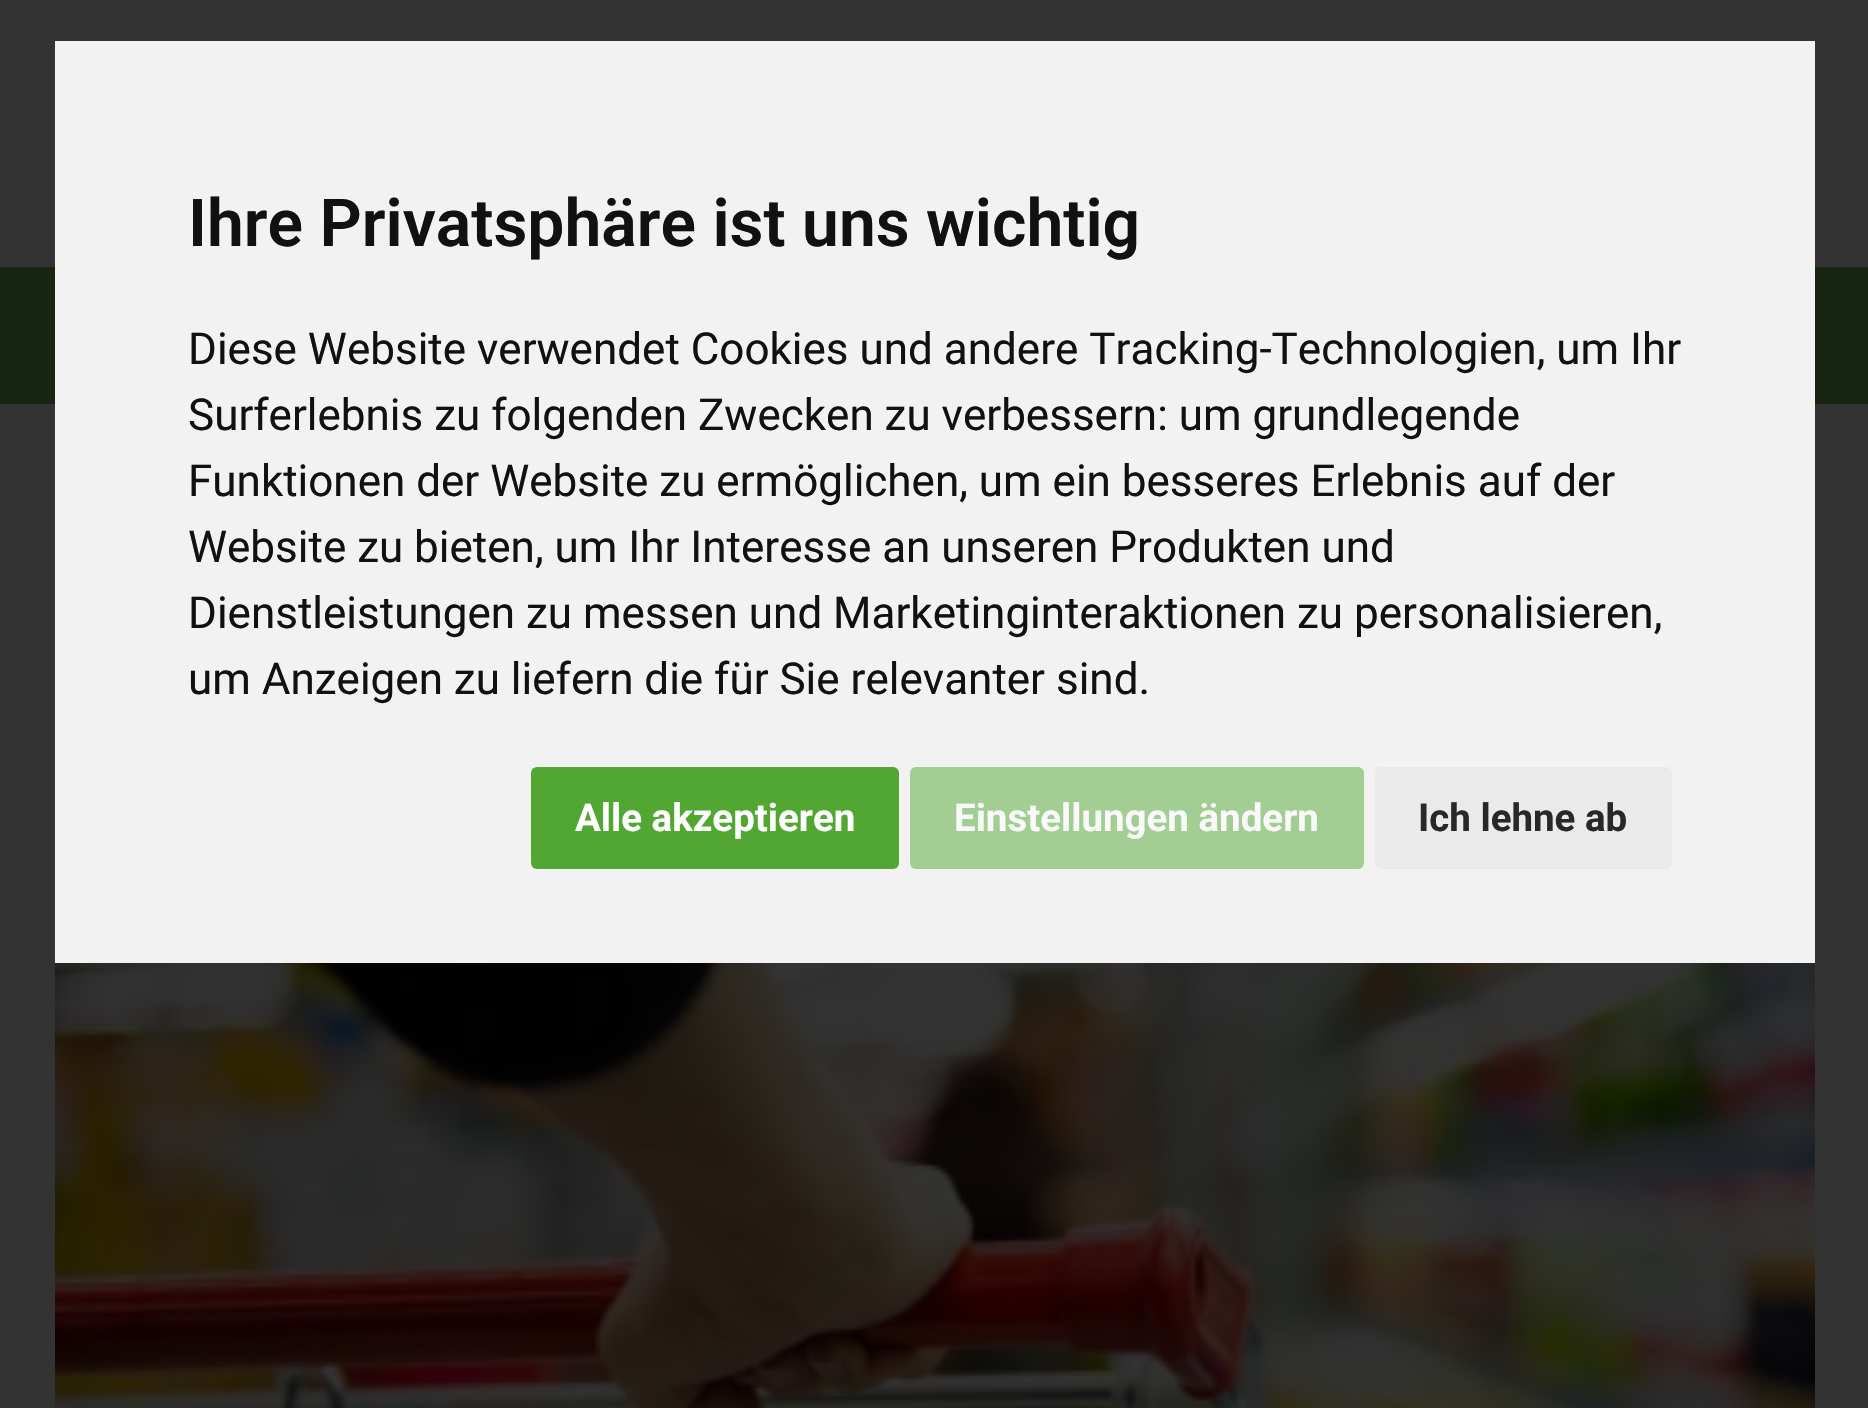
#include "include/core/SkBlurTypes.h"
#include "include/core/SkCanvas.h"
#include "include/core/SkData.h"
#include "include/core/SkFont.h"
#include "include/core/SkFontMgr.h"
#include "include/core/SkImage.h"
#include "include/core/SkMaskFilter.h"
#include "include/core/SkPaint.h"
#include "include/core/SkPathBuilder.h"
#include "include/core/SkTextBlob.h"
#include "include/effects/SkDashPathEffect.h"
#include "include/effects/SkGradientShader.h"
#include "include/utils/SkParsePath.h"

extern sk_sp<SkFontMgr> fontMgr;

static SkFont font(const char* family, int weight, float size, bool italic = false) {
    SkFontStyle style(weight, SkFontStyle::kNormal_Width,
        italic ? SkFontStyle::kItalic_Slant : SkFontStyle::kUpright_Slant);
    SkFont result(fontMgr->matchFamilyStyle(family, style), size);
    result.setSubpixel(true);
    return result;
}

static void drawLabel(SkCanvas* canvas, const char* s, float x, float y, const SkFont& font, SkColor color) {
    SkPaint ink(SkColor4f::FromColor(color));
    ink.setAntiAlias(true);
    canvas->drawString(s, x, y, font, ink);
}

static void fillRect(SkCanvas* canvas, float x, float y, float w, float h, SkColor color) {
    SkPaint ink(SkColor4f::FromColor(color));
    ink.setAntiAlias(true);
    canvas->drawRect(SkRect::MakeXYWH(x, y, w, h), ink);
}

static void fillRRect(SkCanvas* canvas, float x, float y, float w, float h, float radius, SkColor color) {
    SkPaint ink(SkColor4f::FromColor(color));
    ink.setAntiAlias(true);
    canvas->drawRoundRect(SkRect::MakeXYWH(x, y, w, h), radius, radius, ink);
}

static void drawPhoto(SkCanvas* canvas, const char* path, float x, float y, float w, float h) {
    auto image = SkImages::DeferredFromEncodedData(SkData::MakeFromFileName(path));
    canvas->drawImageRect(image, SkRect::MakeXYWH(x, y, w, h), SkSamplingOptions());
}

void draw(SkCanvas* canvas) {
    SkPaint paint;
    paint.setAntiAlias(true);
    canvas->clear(0xFF333333);
    fillRect(canvas, 0, 267, 1868, 137, 0xFF172512);
    fillRect(canvas, 55, 41, 1760, 922, 0xFFF2F2F2);
    SkFont font1 = font("Roboto", 600, 66);
    drawLabel(canvas, "Ihre Privatsphäre ist uns wichtig", 188, 246, font1, 0xFF111111);
    SkFont font2 = font("Roboto", 400, 44);
    drawLabel(canvas, "Diese Website verwendet Cookies und andere Tracking-Technologien, um Ihr", 188, 364, font2, 0xFF111111);
    drawLabel(canvas, "Surferlebnis zu folgenden Zwecken zu verbessern: um grundlegende", 188, 430, font2, 0xFF111111);
    drawLabel(canvas, "Funktionen der Website zu ermöglichen, um ein besseres Erlebnis auf der", 188, 496, font2, 0xFF111111);
    drawLabel(canvas, "Website zu bieten, um Ihr Interesse an unseren Produkten und", 188, 562, font2, 0xFF111111);
    drawLabel(canvas, "Dienstleistungen zu messen und Marketinginteraktionen zu personalisieren,", 188, 628, font2, 0xFF111111);
    drawLabel(canvas, "um Anzeigen zu liefern die für Sie relevanter sind.", 188, 694, font2, 0xFF111111);
    fillRRect(canvas, 531, 767, 368, 102, 6, 0xFF52A733);
    SkFont font3 = font("Roboto", 700, 38.5f);
    drawLabel(canvas, "Alle akzeptieren", 575, 831, font3, 0xFFFFFFFF);
    fillRRect(canvas, 910, 767, 454, 102, 6, 0xFFA2CD93);
    drawLabel(canvas, "Einstellungen ändern", 954, 831, font3, 0xFFF9F9F9);
    fillRRect(canvas, 1375, 767, 297, 102, 6, 0xFFEAEAEA);
    drawLabel(canvas, "Ich lehne ab", 1418, 831, font3, 0xFF282828);
    drawPhoto(canvas, "assets/img1.png", 55, 963, 1760, 445);
}
